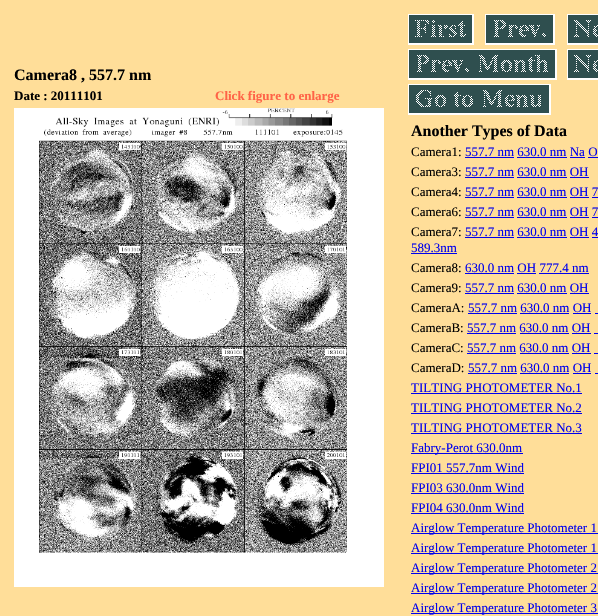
#include "include/core/SkBlurTypes.h"
#include "include/core/SkCanvas.h"
#include "include/core/SkData.h"
#include "include/core/SkFont.h"
#include "include/core/SkFontMgr.h"
#include "include/core/SkImage.h"
#include "include/core/SkMaskFilter.h"
#include "include/core/SkPaint.h"
#include "include/core/SkPathBuilder.h"
#include "include/core/SkTextBlob.h"
#include "include/effects/SkDashPathEffect.h"
#include "include/effects/SkGradientShader.h"
#include "include/utils/SkParsePath.h"

extern sk_sp<SkFontMgr> fontMgr;

static SkFont font(const char* family, int weight, float size, bool italic = false) {
    SkFontStyle style(weight, SkFontStyle::kNormal_Width,
        italic ? SkFontStyle::kItalic_Slant : SkFontStyle::kUpright_Slant);
    SkFont result(fontMgr->matchFamilyStyle(family, style), size);
    result.setSubpixel(true);
    return result;
}

static void drawLabel(SkCanvas* canvas, const char* s, float x, float y, const SkFont& font, SkColor color) {
    SkPaint ink(SkColor4f::FromColor(color));
    ink.setAntiAlias(true);
    canvas->drawString(s, x, y, font, ink);
}

static void fillRect(SkCanvas* canvas, float x, float y, float w, float h, SkColor color) {
    SkPaint ink(SkColor4f::FromColor(color));
    ink.setAntiAlias(true);
    canvas->drawRect(SkRect::MakeXYWH(x, y, w, h), ink);
}

static void drawPhoto(SkCanvas* canvas, const char* path, float x, float y, float w, float h) {
    auto image = SkImages::DeferredFromEncodedData(SkData::MakeFromFileName(path));
    canvas->drawImageRect(image, SkRect::MakeXYWH(x, y, w, h), SkSamplingOptions());
}

void draw(SkCanvas* canvas) {
    SkPaint paint;
    paint.setAntiAlias(true);
    canvas->clear(0xFFFFDE99);
    SkFont font1 = font("Liberation Serif", 700, 16);
    drawLabel(canvas, "Camera8 , 557.7 nm", 14, 80, font1, 0xFF000000);
    SkFont font2 = font("Liberation Serif", 700, 13);
    drawLabel(canvas, "Date : 20111101", 14, 100, font2, 0xFF000000);
    drawLabel(canvas, "Click figure to enlarge", 215, 100, font2, 0xFFFF6347);
    drawPhoto(canvas, "assets/img1.png", 14, 108, 370, 479);
    drawPhoto(canvas, "assets/img2.png", 408, 14, 66, 31);
    drawPhoto(canvas, "assets/img3.png", 485, 14, 70, 31);
    drawPhoto(canvas, "assets/img4.png", 567, 14, 31, 31);
    drawPhoto(canvas, "assets/img5.png", 408, 49, 149, 31);
    drawPhoto(canvas, "assets/img4.png", 567, 49, 31, 31);
    drawPhoto(canvas, "assets/img6.png", 408, 84, 143, 31);
    drawLabel(canvas, "Another Types of Data", 411, 136, font1, 0xFF000000);
    SkFont font3 = font("Liberation Serif", 400, 13);
    drawLabel(canvas, "Camera1:", 411, 156, font3, 0xFF000000);
    drawLabel(canvas, "557.7 nm 630.0 nm Na O", 465, 156, font3, 0xFF0000EE);
    fillRect(canvas, 465, 157, 49, 1, 0xFF0000EE);
    fillRect(canvas, 517, 157, 50, 1, 0xFF0000EE);
    fillRect(canvas, 570, 157, 15, 1, 0xFF0000EE);
    fillRect(canvas, 588, 157, 10, 1, 0xFF0000EE);
    drawLabel(canvas, "Camera3:", 411, 176, font3, 0xFF000000);
    drawLabel(canvas, "557.7 nm 630.0 nm OH", 465, 176, font3, 0xFF0000EE);
    fillRect(canvas, 465, 177, 49, 1, 0xFF0000EE);
    fillRect(canvas, 517, 177, 50, 1, 0xFF0000EE);
    fillRect(canvas, 570, 177, 19, 1, 0xFF0000EE);
    drawLabel(canvas, "Camera4:", 411, 196, font3, 0xFF000000);
    drawLabel(canvas, "557.7 nm 630.0 nm OH 7", 465, 196, font3, 0xFF0000EE);
    fillRect(canvas, 465, 197, 49, 1, 0xFF0000EE);
    fillRect(canvas, 517, 197, 50, 1, 0xFF0000EE);
    fillRect(canvas, 570, 197, 19, 1, 0xFF0000EE);
    fillRect(canvas, 592, 197, 6, 1, 0xFF0000EE);
    drawLabel(canvas, "Camera6:", 411, 216, font3, 0xFF000000);
    drawLabel(canvas, "557.7 nm 630.0 nm OH 7", 465, 216, font3, 0xFF0000EE);
    fillRect(canvas, 465, 217, 49, 1, 0xFF0000EE);
    fillRect(canvas, 517, 217, 50, 1, 0xFF0000EE);
    fillRect(canvas, 570, 217, 19, 1, 0xFF0000EE);
    fillRect(canvas, 592, 217, 6, 1, 0xFF0000EE);
    drawLabel(canvas, "Camera7:", 411, 236, font3, 0xFF000000);
    drawLabel(canvas, "557.7 nm 630.0 nm OH 4", 465, 236, font3, 0xFF0000EE);
    fillRect(canvas, 465, 237, 49, 1, 0xFF0000EE);
    fillRect(canvas, 517, 237, 50, 1, 0xFF0000EE);
    fillRect(canvas, 570, 237, 19, 1, 0xFF0000EE);
    fillRect(canvas, 592, 237, 6, 1, 0xFF0000EE);
    drawLabel(canvas, "589.3nm", 411, 252, font3, 0xFF0000EE);
    fillRect(canvas, 411, 253, 46, 1, 0xFF0000EE);
    drawLabel(canvas, "Camera8:", 411, 272, font3, 0xFF000000);
    drawLabel(canvas, "630.0 nm OH 777.4 nm", 465, 272, font3, 0xFF0000EE);
    fillRect(canvas, 465, 273, 49, 1, 0xFF0000EE);
    fillRect(canvas, 517, 273, 19, 1, 0xFF0000EE);
    fillRect(canvas, 539, 273, 50, 1, 0xFF0000EE);
    drawLabel(canvas, "Camera9:", 411, 292, font3, 0xFF000000);
    drawLabel(canvas, "557.7 nm 630.0 nm OH", 465, 292, font3, 0xFF0000EE);
    fillRect(canvas, 465, 293, 49, 1, 0xFF0000EE);
    fillRect(canvas, 517, 293, 50, 1, 0xFF0000EE);
    fillRect(canvas, 570, 293, 19, 1, 0xFF0000EE);
    drawLabel(canvas, "CameraA:", 411, 312, font3, 0xFF000000);
    drawLabel(canvas, "557.7 nm 630.0 nm OH", 468, 312, font3, 0xFF0000EE);
    fillRect(canvas, 468, 313, 49, 1, 0xFF0000EE);
    fillRect(canvas, 520, 313, 49, 1, 0xFF0000EE);
    fillRect(canvas, 573, 313, 18, 1, 0xFF0000EE);
    fillRect(canvas, 595, 313, 3, 1, 0xFF0000EE);
    drawLabel(canvas, "CameraB:", 411, 332, font3, 0xFF000000);
    drawLabel(canvas, "557.7 nm 630.0 nm OH", 467, 332, font3, 0xFF0000EE);
    fillRect(canvas, 467, 333, 49, 1, 0xFF0000EE);
    fillRect(canvas, 520, 333, 49, 1, 0xFF0000EE);
    fillRect(canvas, 572, 333, 19, 1, 0xFF0000EE);
    fillRect(canvas, 594, 333, 4, 1, 0xFF0000EE);
    drawLabel(canvas, "CameraC:", 411, 352, font3, 0xFF000000);
    drawLabel(canvas, "557.7 nm 630.0 nm OH", 467, 352, font3, 0xFF0000EE);
    fillRect(canvas, 467, 353, 49, 1, 0xFF0000EE);
    fillRect(canvas, 520, 353, 49, 1, 0xFF0000EE);
    fillRect(canvas, 572, 353, 19, 1, 0xFF0000EE);
    fillRect(canvas, 594, 353, 4, 1, 0xFF0000EE);
    drawLabel(canvas, "CameraD:", 411, 372, font3, 0xFF000000);
    drawLabel(canvas, "557.7 nm 630.0 nm OH", 468, 372, font3, 0xFF0000EE);
    fillRect(canvas, 468, 373, 49, 1, 0xFF0000EE);
    fillRect(canvas, 520, 373, 49, 1, 0xFF0000EE);
    fillRect(canvas, 573, 373, 18, 1, 0xFF0000EE);
    fillRect(canvas, 595, 373, 3, 1, 0xFF0000EE);
    drawLabel(canvas, "TILTING PHOTOMETER No.1", 411, 392, font3, 0xFF0000EE);
    fillRect(canvas, 411, 393, 171, 1, 0xFF0000EE);
    drawLabel(canvas, "TILTING PHOTOMETER No.2", 411, 412, font3, 0xFF0000EE);
    fillRect(canvas, 411, 413, 171, 1, 0xFF0000EE);
    drawLabel(canvas, "TILTING PHOTOMETER No.3", 411, 432, font3, 0xFF0000EE);
    fillRect(canvas, 411, 433, 171, 1, 0xFF0000EE);
    fillRect(canvas, 411, 453, 112, 1, 0xFF0000EE);
    drawLabel(canvas, "Fabry-Perot 630.0nm", 411, 452, font3, 0xFF0000EE);
    drawLabel(canvas, "FPI01 557.7nm Wind", 411, 472, font3, 0xFF0000EE);
    fillRect(canvas, 411, 473, 113, 1, 0xFF0000EE);
    drawLabel(canvas, "FPI03 630.0nm Wind", 411, 492, font3, 0xFF0000EE);
    fillRect(canvas, 411, 493, 113, 1, 0xFF0000EE);
    drawLabel(canvas, "FPI04 630.0nm Wind", 411, 512, font3, 0xFF0000EE);
    fillRect(canvas, 411, 513, 113, 1, 0xFF0000EE);
    fillRect(canvas, 411, 533, 187, 1, 0xFF0000EE);
    drawLabel(canvas, "Airglow Temperature Photometer 1", 411, 532, font3, 0xFF0000EE);
    fillRect(canvas, 411, 553, 187, 1, 0xFF0000EE);
    drawLabel(canvas, "Airglow Temperature Photometer 1", 411, 552, font3, 0xFF0000EE);
    fillRect(canvas, 411, 573, 187, 1, 0xFF0000EE);
    drawLabel(canvas, "Airglow Temperature Photometer 2", 411, 572, font3, 0xFF0000EE);
    fillRect(canvas, 411, 593, 187, 1, 0xFF0000EE);
    drawLabel(canvas, "Airglow Temperature Photometer 2", 411, 592, font3, 0xFF0000EE);
    fillRect(canvas, 411, 613, 187, 1, 0xFF0000EE);
    drawLabel(canvas, "Airglow Temperature Photometer 3", 411, 612, font3, 0xFF0000EE);
}
